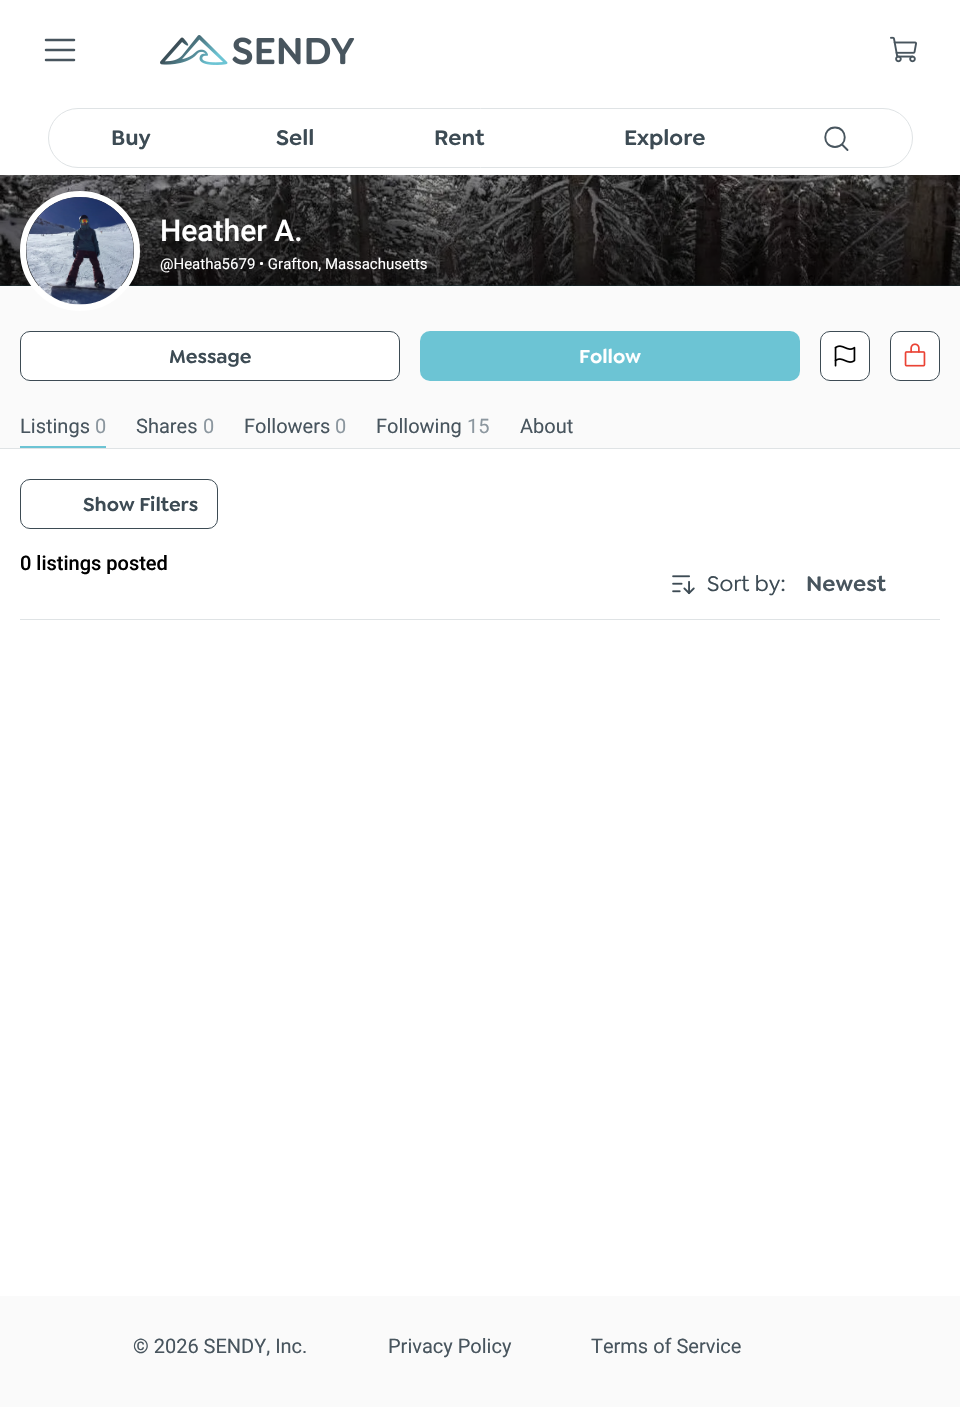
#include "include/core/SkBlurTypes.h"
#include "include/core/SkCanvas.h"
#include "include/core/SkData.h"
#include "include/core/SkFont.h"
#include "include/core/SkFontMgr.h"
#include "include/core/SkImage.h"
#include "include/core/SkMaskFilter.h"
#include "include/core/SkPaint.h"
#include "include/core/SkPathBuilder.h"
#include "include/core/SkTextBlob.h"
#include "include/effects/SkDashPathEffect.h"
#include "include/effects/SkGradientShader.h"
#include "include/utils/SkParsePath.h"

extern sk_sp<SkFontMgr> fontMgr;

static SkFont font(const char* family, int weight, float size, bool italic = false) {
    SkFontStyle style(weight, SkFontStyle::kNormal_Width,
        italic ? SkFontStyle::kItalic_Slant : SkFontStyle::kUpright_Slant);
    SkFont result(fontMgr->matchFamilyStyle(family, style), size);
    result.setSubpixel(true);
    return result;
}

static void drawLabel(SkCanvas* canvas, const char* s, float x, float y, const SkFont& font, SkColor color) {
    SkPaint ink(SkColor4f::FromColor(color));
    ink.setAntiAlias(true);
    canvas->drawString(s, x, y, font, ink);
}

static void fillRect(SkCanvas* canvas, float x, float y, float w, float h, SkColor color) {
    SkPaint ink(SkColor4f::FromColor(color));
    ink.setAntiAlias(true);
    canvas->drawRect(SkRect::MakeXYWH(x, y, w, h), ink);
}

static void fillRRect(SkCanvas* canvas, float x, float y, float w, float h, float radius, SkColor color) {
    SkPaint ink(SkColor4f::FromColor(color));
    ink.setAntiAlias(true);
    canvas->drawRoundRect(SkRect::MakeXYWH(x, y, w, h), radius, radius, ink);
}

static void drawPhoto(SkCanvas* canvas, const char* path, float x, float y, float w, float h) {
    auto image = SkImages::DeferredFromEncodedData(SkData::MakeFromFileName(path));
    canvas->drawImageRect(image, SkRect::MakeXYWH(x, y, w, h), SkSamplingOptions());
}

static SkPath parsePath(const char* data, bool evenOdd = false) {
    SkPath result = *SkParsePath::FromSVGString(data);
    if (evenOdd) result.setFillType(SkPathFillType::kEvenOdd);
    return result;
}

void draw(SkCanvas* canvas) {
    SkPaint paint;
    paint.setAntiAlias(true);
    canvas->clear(0xFFFFFFFF);
    paint.setStroke(true);
    paint.setStrokeWidth(2.5f);
    paint.setStrokeCap(SkPaint::kRound_Cap);
    paint.setStrokeJoin(SkPaint::kRound_Join);
    paint.setColor(0xFF48555E);
    canvas->drawPath(parsePath("M46 50H74M46 40H74M46 60H74"), paint);
    drawPhoto(canvas, "assets/img1.png", 160, 35, 195, 30);
    drawPhoto(canvas, "assets/img2.png", 890, 36, 27, 27);
    paint.setStrokeWidth(1);
    paint.setStrokeCap(SkPaint::kButt_Cap);
    paint.setStrokeJoin(SkPaint::kMiter_Join);
    paint.setColor(0xFFDFE3E5);
    canvas->drawRoundRect(SkRect::MakeXYWH(48.5f, 108.5f, 864, 59), 29.5f, 29.5f, paint);
    SkFont font1 = font("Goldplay", 600, 22.5f);
    drawLabel(canvas, "Buy", 111, 145, font1, 0xFF3D4B54);
    drawLabel(canvas, "Sell", 276, 145, font1, 0xFF3D4B54);
    drawLabel(canvas, "Rent", 434, 145, font1, 0xFF3D4B54);
    drawLabel(canvas, "Explore", 624, 145, font1, 0xFF3D4B54);
    paint.setStrokeWidth(1.9f);
    paint.setStrokeCap(SkPaint::kRound_Cap);
    paint.setStrokeJoin(SkPaint::kRound_Join);
    paint.setColor(0xFF48555E);
    canvas->drawPath(parsePath("M835 147C848 147 848 127.5 835 127.5C822 127.5 822 147 835 147ZM842 144.5L847.5 150"), paint);
    fillRect(canvas, 0, 285, 960, 1, 0xFF4EAEBF);
    drawPhoto(canvas, "assets/img3.png", 0, 175, 960, 111);
    paint.setStroke(false);
    {
        const SkColor colors[] = {0x00000000, 0xB3000000};
        const float stops[] = {0, 1};
        const SkPoint ends[] = {{480, 104}, {480, 286}};
        paint.setShader(SkGradientShader::MakeLinear(ends, colors, stops, 2, SkTileMode::kClamp));
        paint.setAlpha(255);
    }
    canvas->drawRect(SkRect::MakeXYWH(0, 175, 960, 111), paint);
    fillRect(canvas, 0, 286, 960, 162, 0xFFFAFAFA);
    paint.setStroke(true);
    paint.setStrokeWidth(6);
    paint.setStrokeCap(SkPaint::kButt_Cap);
    paint.setStrokeJoin(SkPaint::kMiter_Join);
    paint.setShader(nullptr);
    paint.setColor(0xFFFFFFFF);
    canvas->drawCircle(80, 251, 57, paint);
    drawPhoto(canvas, "assets/img4.png", 26, 197, 108, 108);
    SkFont font2 = font("Roboto", 500, 30);
    drawLabel(canvas, "Heather A.", 160, 241, font2, 0xFFFFFFFF);
    SkFont font3 = font("Roboto", 400, 15);
    drawLabel(canvas, "@Heatha5679 • Grafton, Massachusetts", 160, 269, font3, 0xFFFFFFFF);
    fillRect(canvas, 0, 448, 960, 1, 0xFFDFE3E5);
    paint.setStroke(false);
    canvas->drawRoundRect(SkRect::MakeXYWH(20.5f, 331.5f, 379, 49), 9.5f, 9.5f, paint);
    paint.setStroke(true);
    paint.setStrokeWidth(1);
    paint.setColor(0xFF3D4B54);
    canvas->drawRoundRect(SkRect::MakeXYWH(20.5f, 331.5f, 379, 49), 9.5f, 9.5f, paint);
    SkFont font4 = font("Goldplay", 600, 20);
    drawLabel(canvas, "Message", 169, 363, font4, 0xFF3D4B54);
    fillRRect(canvas, 420, 331, 380, 50, 10, 0xFF6CC4D4);
    drawLabel(canvas, "Follow", 579, 363, font4, 0xFFFFFFFF);
    paint.setStroke(false);
    paint.setColor(0xFFFFFFFF);
    canvas->drawRoundRect(SkRect::MakeXYWH(820.5f, 331.5f, 49, 49), 9.5f, 9.5f, paint);
    paint.setStroke(true);
    paint.setColor(0xFF3D4B54);
    canvas->drawRoundRect(SkRect::MakeXYWH(820.5f, 331.5f, 49, 49), 9.5f, 9.5f, paint);
    drawPhoto(canvas, "assets/img5.png", 834, 345, 22, 22);
    paint.setStroke(false);
    paint.setColor(0xFFFFFFFF);
    canvas->drawRoundRect(SkRect::MakeXYWH(890.5f, 331.5f, 49, 49), 9.5f, 9.5f, paint);
    paint.setStroke(true);
    paint.setColor(0xFF3D4B54);
    canvas->drawRoundRect(SkRect::MakeXYWH(890.5f, 331.5f, 49, 49), 9.5f, 9.5f, paint);
    drawPhoto(canvas, "assets/img6.png", 904, 343, 22, 24);
    fillRect(canvas, 20, 446, 86, 2, 0xFF6CC4D4);
    SkFont font5 = font("Roboto", 400, 20);
    drawLabel(canvas, "Listings", 20, 433, font5, 0xFF48555E);
    drawLabel(canvas, "0", 95, 433, font5, 0xFF8C979F);
    drawLabel(canvas, "Shares", 136, 433, font5, 0xFF48555E);
    drawLabel(canvas, "0", 203, 433, font5, 0xFF8C979F);
    drawLabel(canvas, "Followers", 244, 433, font5, 0xFF48555E);
    drawLabel(canvas, "0", 335, 433, font5, 0xFF8C979F);
    drawLabel(canvas, "Following", 376, 433, font5, 0xFF48555E);
    drawLabel(canvas, "15", 467, 433, font5, 0xFF8C979F);
    drawLabel(canvas, "About", 520, 433, font5, 0xFF48555E);
    canvas->drawRoundRect(SkRect::MakeXYWH(20.5f, 479.5f, 197, 49), 9.5f, 9.5f, paint);
    drawLabel(canvas, "Show Filters", 83, 511, font4, 0xFF3D4B54);
    fillRect(canvas, 20, 619, 920, 1, 0xFFDFE3E5);
    SkFont font6 = font("Roboto", 500, 20);
    drawLabel(canvas, "0 listings posted", 20, 570, font6, 0xFF000000);
    drawPhoto(canvas, "assets/img7.png", 672, 575, 23, 20);
    SkFont font7 = font("Goldplay", 500, 22.5f);
    drawLabel(canvas, "Sort by:", 707, 591, font7, 0xFF3D4B54);
    drawLabel(canvas, "Newest", 806, 591, font1, 0xFF48555E);
    fillRect(canvas, 0, 1296, 960, 111, 0xFFFAFAFA);
    drawLabel(canvas, "© 2026 SENDY, Inc.", 133, 1353, font5, 0xFF48555E);
    drawLabel(canvas, "Privacy Policy", 388, 1353, font5, 0xFF48555E);
    drawLabel(canvas, "Terms of Service", 591, 1353, font5, 0xFF48555E);
}
